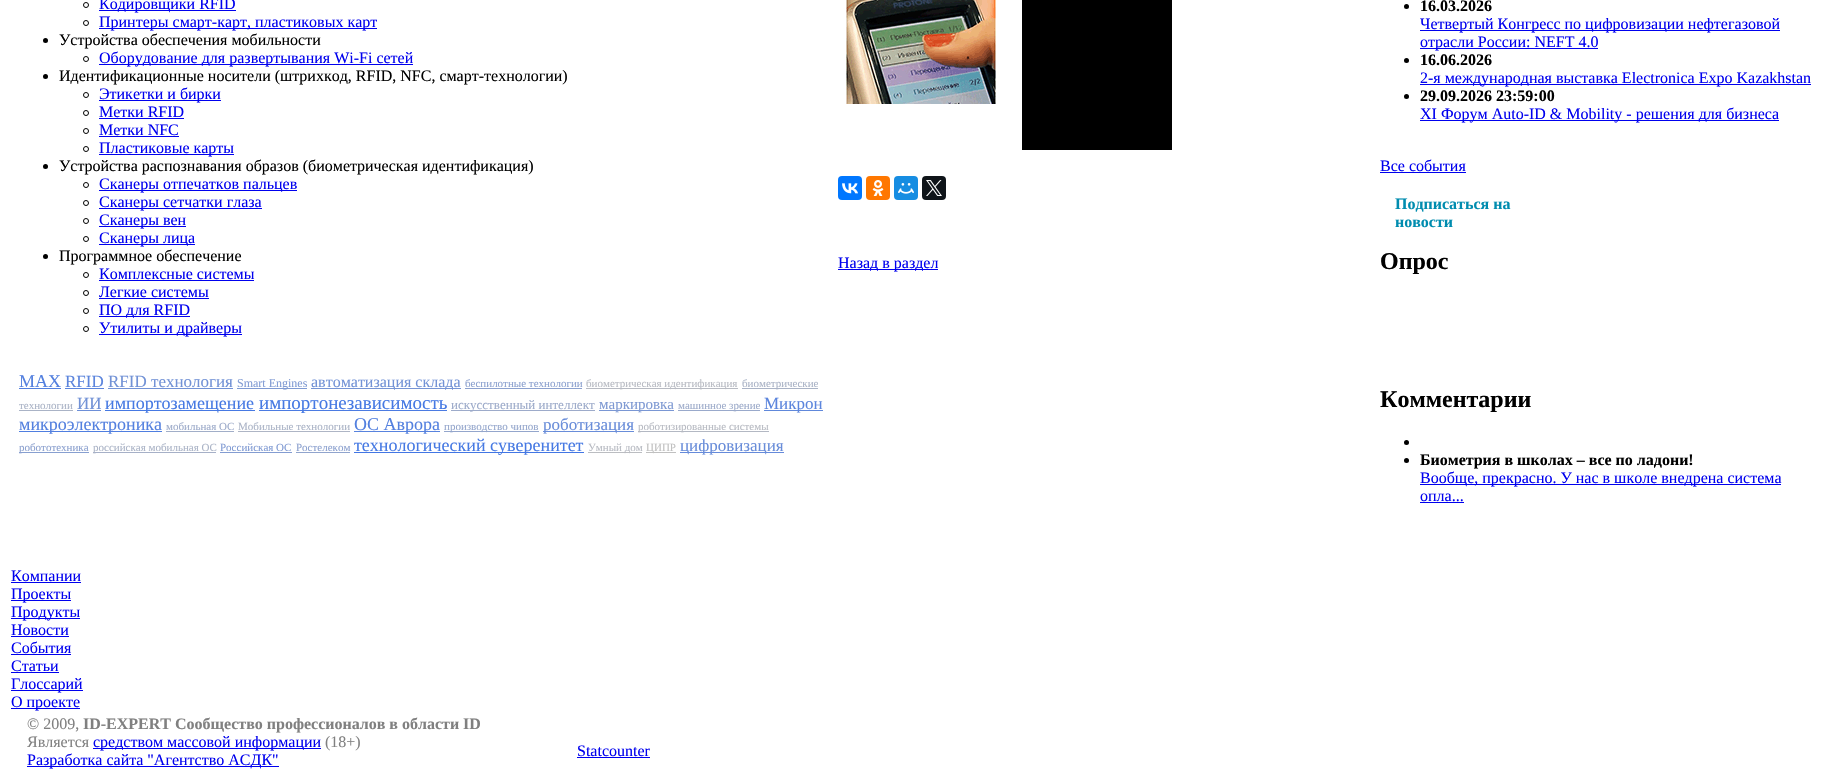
#include "include/core/SkBlurTypes.h"
#include "include/core/SkCanvas.h"
#include "include/core/SkData.h"
#include "include/core/SkFont.h"
#include "include/core/SkFontMgr.h"
#include "include/core/SkImage.h"
#include "include/core/SkMaskFilter.h"
#include "include/core/SkPaint.h"
#include "include/core/SkPathBuilder.h"
#include "include/core/SkTextBlob.h"
#include "include/effects/SkDashPathEffect.h"
#include "include/effects/SkGradientShader.h"
#include "include/utils/SkParsePath.h"

extern sk_sp<SkFontMgr> fontMgr;

static SkFont font(const char* family, int weight, float size, bool italic = false) {
    SkFontStyle style(weight, SkFontStyle::kNormal_Width,
        italic ? SkFontStyle::kItalic_Slant : SkFontStyle::kUpright_Slant);
    SkFont result(fontMgr->matchFamilyStyle(family, style), size);
    result.setSubpixel(true);
    return result;
}

static void drawLabel(SkCanvas* canvas, const char* s, float x, float y, const SkFont& font, SkColor color) {
    SkPaint ink(SkColor4f::FromColor(color));
    ink.setAntiAlias(true);
    canvas->drawString(s, x, y, font, ink);
}

static void fillRect(SkCanvas* canvas, float x, float y, float w, float h, SkColor color) {
    SkPaint ink(SkColor4f::FromColor(color));
    ink.setAntiAlias(true);
    canvas->drawRect(SkRect::MakeXYWH(x, y, w, h), ink);
}

static void fillRRect(SkCanvas* canvas, float x, float y, float w, float h, float radius, SkColor color) {
    SkPaint ink(SkColor4f::FromColor(color));
    ink.setAntiAlias(true);
    canvas->drawRoundRect(SkRect::MakeXYWH(x, y, w, h), radius, radius, ink);
}

static void drawPhoto(SkCanvas* canvas, const char* path, float x, float y, float w, float h) {
    auto image = SkImages::DeferredFromEncodedData(SkData::MakeFromFileName(path));
    canvas->drawImageRect(image, SkRect::MakeXYWH(x, y, w, h), SkSamplingOptions());
}

void draw(SkCanvas* canvas) {
    SkPaint paint;
    paint.setAntiAlias(true);
    canvas->clear(0xFFFFFFFF);
    paint.setStroke(true);
    paint.setStrokeWidth(1);
    paint.setColor(0xFF000000);
    canvas->drawCircle(86, 5, 2.5f, paint);
    fillRect(canvas, 99, 10, 137, 1, 0xFF0000EE);
    SkFont font1 = font("Liberation Serif", 400, 16);
    drawLabel(canvas, "Кодировщики RFID", 99, 9, font1, 0xFF0000EE);
    canvas->drawCircle(86, 23, 2.5f, paint);
    fillRect(canvas, 99, 28, 278, 1, 0xFF0000EE);
    drawLabel(canvas, "Принтеры смарт-карт, пластиковых карт", 99, 27, font1, 0xFF0000EE);
    paint.setStroke(false);
    canvas->drawCircle(45.5f, 40.5f, 2.5f, paint);
    drawLabel(canvas, "Устройства обеспечения мобильности", 59, 45, font1, 0xFF000000);
    paint.setStroke(true);
    canvas->drawCircle(86, 59, 2.5f, paint);
    fillRect(canvas, 99, 64, 314, 1, 0xFF0000EE);
    drawLabel(canvas, "Оборудование для развертывания Wi-Fi сетей", 99, 63, font1, 0xFF0000EE);
    paint.setStroke(false);
    canvas->drawCircle(45.5f, 76.5f, 2.5f, paint);
    drawLabel(canvas, "Идентификационные носители (штрихкод, RFID, NFC, смарт-технологии)", 59, 81, font1, 0xFF000000);
    paint.setStroke(true);
    canvas->drawCircle(86, 95, 2.5f, paint);
    fillRect(canvas, 99, 100, 122, 1, 0xFF0000EE);
    drawLabel(canvas, "Этикетки и бирки", 99, 99, font1, 0xFF0000EE);
    canvas->drawCircle(86, 113, 2.5f, paint);
    drawLabel(canvas, "Метки RFID", 99, 117, font1, 0xFF0000EE);
    fillRect(canvas, 99, 118, 85, 1, 0xFF0000EE);
    canvas->drawCircle(86, 131, 2.5f, paint);
    drawLabel(canvas, "Метки NFC", 99, 135, font1, 0xFF0000EE);
    fillRect(canvas, 99, 136, 80, 1, 0xFF0000EE);
    canvas->drawCircle(86, 149, 2.5f, paint);
    fillRect(canvas, 99, 154, 135, 1, 0xFF0000EE);
    drawLabel(canvas, "Пластиковые карты", 99, 153, font1, 0xFF0000EE);
    paint.setStroke(false);
    canvas->drawCircle(45.5f, 166.5f, 2.5f, paint);
    drawLabel(canvas, "Устройства распознавания образов (биометрическая идентификация)", 59, 171, font1, 0xFF000000);
    paint.setStroke(true);
    canvas->drawCircle(86, 185, 2.5f, paint);
    fillRect(canvas, 99, 190, 198, 1, 0xFF0000EE);
    drawLabel(canvas, "Сканеры отпечатков пальцев", 99, 189, font1, 0xFF0000EE);
    canvas->drawCircle(86, 203, 2.5f, paint);
    fillRect(canvas, 99, 208, 163, 1, 0xFF0000EE);
    drawLabel(canvas, "Сканеры сетчатки глаза", 99, 207, font1, 0xFF0000EE);
    canvas->drawCircle(86, 221, 2.5f, paint);
    fillRect(canvas, 99, 226, 87, 1, 0xFF0000EE);
    drawLabel(canvas, "Сканеры вен", 99, 225, font1, 0xFF0000EE);
    canvas->drawCircle(86, 239, 2.5f, paint);
    fillRect(canvas, 99, 244, 96, 1, 0xFF0000EE);
    drawLabel(canvas, "Сканеры лица", 99, 243, font1, 0xFF0000EE);
    paint.setStroke(false);
    canvas->drawCircle(45.5f, 256.5f, 2.5f, paint);
    drawLabel(canvas, "Программное обеспечение", 59, 261, font1, 0xFF000000);
    paint.setStroke(true);
    canvas->drawCircle(86, 275, 2.5f, paint);
    drawLabel(canvas, "Комплексные системы", 99, 279, font1, 0xFF0000EE);
    fillRect(canvas, 99, 280, 155, 1, 0xFF0000EE);
    canvas->drawCircle(86, 293, 2.5f, paint);
    drawLabel(canvas, "Легкие системы", 99, 297, font1, 0xFF0000EE);
    fillRect(canvas, 99, 298, 110, 1, 0xFF0000EE);
    canvas->drawCircle(86, 311, 2.5f, paint);
    fillRect(canvas, 99, 316, 91, 1, 0xFF0000EE);
    drawLabel(canvas, "ПО для RFID", 99, 315, font1, 0xFF0000EE);
    canvas->drawCircle(86, 329, 2.5f, paint);
    fillRect(canvas, 99, 334, 143, 1, 0xFF0000EE);
    drawLabel(canvas, "Утилиты и драйверы", 99, 333, font1, 0xFF0000EE);
    SkFont font2 = font("Liberation Serif", 400, 18);
    drawLabel(canvas, "MAX", 19, 387, font2, 0xFF5380DF);
    fillRect(canvas, 19, 388, 42, 1, 0xFF5380DF);
    SkFont font3 = font("Liberation Serif", 400, 17);
    drawLabel(canvas, "RFID", 65, 387, font3, 0xFF5C85DD);
    fillRect(canvas, 65, 388, 39, 1, 0xFF5C85DD);
    drawLabel(canvas, "RFID технология", 108, 387, font3, 0xFF7292D6);
    fillRect(canvas, 108, 388, 125, 1, 0xFF7292D6);
    fillRect(canvas, 237, 388, 70, 1, 0xFF7F9AD3);
    SkFont font4 = font("Liberation Serif", 400, 12);
    drawLabel(canvas, "Smart Engines", 237, 387, font4, 0xFF7F9AD3);
    fillRect(canvas, 311, 388, 150, 1, 0xFF7694D5);
    drawLabel(canvas, "автоматизация склада", 311, 387, font1, 0xFF7292D6);
    SkFont font5 = font("Liberation Serif", 400, 11);
    drawLabel(canvas, "беспилотные технологии", 465, 387, font5, 0xFF8CA1CF);
    fillRect(canvas, 465, 388, 117, 1, 0xFF8CA1CF);
    fillRect(canvas, 586, 388, 152, 1, 0xFFB7BAC2);
    drawLabel(canvas, "биометрическая идентификация", 586, 387, font5, 0xFFB7BAC2);
    fillRect(canvas, 742, 388, 76, 1, 0xFFAAB3C6);
    drawLabel(canvas, "биометрические", 742, 387, font5, 0xFFAAB3C6);
    drawLabel(canvas, "технологии", 19, 409, font5, 0xFFAAB3C6);
    fillRect(canvas, 19, 410, 54, 1, 0xFFAAB3C6);
    drawLabel(canvas, "ИИ", 77, 409, font3, 0xFF7292D6);
    fillRect(canvas, 77, 410, 24, 1, 0xFF6D8FD8);
    fillRect(canvas, 105, 410, 150, 1, 0xFF4679E3);
    drawLabel(canvas, "импортозамещение", 105, 409, font2, 0xFF4679E3);
    fillRect(canvas, 259, 410, 188, 1, 0xFF4B7BE2);
    SkFont font6 = font("Liberation Serif", 400, 19);
    drawLabel(canvas, "импортонезависимость", 259, 409, font6, 0xFF4679E3);
    fillRect(canvas, 451, 410, 144, 1, 0xFF9DABCA);
    SkFont font7 = font("Liberation Serif", 400, 13);
    drawLabel(canvas, "искусственный интеллект", 451, 409, font7, 0xFF9DABCA);
    fillRect(canvas, 599, 410, 75, 1, 0xFF7A97D4);
    SkFont font8 = font("Liberation Serif", 400, 15);
    drawLabel(canvas, "маркировка", 599, 409, font8, 0xFF7F9AD3);
    fillRect(canvas, 678, 410, 82, 1, 0xFF99A9CB);
    drawLabel(canvas, "машинное зрение", 678, 409, font5, 0xFF9DABCA);
    fillRect(canvas, 764, 410, 59, 1, 0xFF6088DB);
    drawLabel(canvas, "Микрон", 764, 409, font3, 0xFF5C85DD);
    fillRect(canvas, 19, 431, 143, 1, 0xFF4F7EE0);
    drawLabel(canvas, "микроэлектроника", 19, 430, font2, 0xFF5380DF);
    drawLabel(canvas, "мобильная ОС", 166, 430, font5, 0xFF9DABCA);
    fillRect(canvas, 166, 431, 68, 1, 0xFFA1AEC8);
    drawLabel(canvas, "Мобильные технологии", 238, 430, font5, 0xFFAAB3C6);
    fillRect(canvas, 238, 431, 112, 1, 0xFFAEB5C5);
    fillRect(canvas, 354, 431, 86, 1, 0xFF5883DE);
    drawLabel(canvas, "ОС Аврора", 354, 430, font2, 0xFF5380DF);
    fillRect(canvas, 444, 431, 95, 1, 0xFF94A6CC);
    drawLabel(canvas, "производство чипов", 444, 430, font5, 0xFF94A6CC);
    fillRect(canvas, 543, 431, 91, 1, 0xFF698DD9);
    drawLabel(canvas, "роботизация", 543, 430, font3, 0xFF698DD9);
    fillRect(canvas, 638, 431, 131, 1, 0xFFB3B8C3);
    drawLabel(canvas, "роботизированные системы", 638, 430, font5, 0xFFB7BAC2);
    fillRect(canvas, 19, 452, 70, 1, 0xFF879FD0);
    drawLabel(canvas, "робототехника", 19, 451, font5, 0xFF8CA1CF);
    fillRect(canvas, 93, 452, 123, 1, 0xFFA6B0C7);
    drawLabel(canvas, "российская мобильная ОС", 93, 451, font5, 0xFFAAB3C6);
    drawLabel(canvas, "Российская ОС", 220, 451, font5, 0xFF7F9AD3);
    fillRect(canvas, 220, 452, 72, 1, 0xFF839CD1);
    drawLabel(canvas, "Ростелеком", 296, 451, font5, 0xFF8CA1CF);
    fillRect(canvas, 296, 452, 54, 1, 0xFF90A4CD);
    fillRect(canvas, 354, 452, 230, 1, 0xFF4276E4);
    drawLabel(canvas, "технологический суверенитет", 354, 451, font2, 0xFF4679E3);
    fillRect(canvas, 588, 452, 54, 1, 0xFFBBBDC1);
    drawLabel(canvas, "Умный дом", 588, 451, font5, 0xFFB7BAC2);
    fillRect(canvas, 646, 452, 30, 1, 0xFFC0C0C0);
    drawLabel(canvas, "ЦИПР", 646, 451, font5, 0xFFC0C0C0);
    fillRect(canvas, 680, 452, 104, 1, 0xFF658ADA);
    drawLabel(canvas, "цифровизация", 680, 451, font3, 0xFF698DD9);
    drawPhoto(canvas, "assets/img1.png", 846, 0, 150, 104);
    fillRect(canvas, 1022, 0, 150, 150, 0xFF000000);
    fillRRect(canvas, 838, 176, 24, 24, 4, 0xFF0077FF);
    drawPhoto(canvas, "assets/img2.png", 842, 183, 16, 11);
    fillRRect(canvas, 866, 176, 24, 24, 4, 0xFFFF7700);
    drawPhoto(canvas, "assets/img3.png", 872, 180, 12, 16);
    fillRRect(canvas, 894, 176, 24, 24, 4, 0xFF168DE2);
    drawPhoto(canvas, "assets/img4.png", 898, 183, 16, 11);
    fillRRect(canvas, 922, 176, 24, 24, 4, 0xFF0F1419);
    drawPhoto(canvas, "assets/img5.png", 926, 180, 16, 16);
    fillRect(canvas, 838, 269, 100, 1, 0xFF0000EE);
    drawLabel(canvas, "Назад в раздел", 838, 268, font1, 0xFF0000EE);
    paint.setStroke(false);
    canvas->drawCircle(1406.5f, 6.5f, 2.5f, paint);
    SkFont font9 = font("Liberation Serif", 700, 16);
    drawLabel(canvas, "16.03.2026", 1420, 11, font9, 0xFF000000);
    fillRect(canvas, 1420, 30, 360, 1, 0xFF0000EE);
    drawLabel(canvas, "Четвертый Конгресс по цифровизации нефтегазовой", 1420, 29, font1, 0xFF0000EE);
    fillRect(canvas, 1420, 48, 178, 1, 0xFF0000EE);
    drawLabel(canvas, "отрасли России: NEFT 4.0", 1420, 47, font1, 0xFF0000EE);
    canvas->drawCircle(1406.5f, 60.5f, 2.5f, paint);
    drawLabel(canvas, "16.06.2026", 1420, 65, font9, 0xFF000000);
    fillRect(canvas, 1420, 84, 391, 1, 0xFF0000EE);
    drawLabel(canvas, "2-я международная выставка Electronica Expo Kazakhstan", 1420, 83, font1, 0xFF0000EE);
    canvas->drawCircle(1406.5f, 96.5f, 2.5f, paint);
    drawLabel(canvas, "29.09.2026 23:59:00", 1420, 101, font9, 0xFF000000);
    fillRect(canvas, 1420, 120, 359, 1, 0xFF0000EE);
    drawLabel(canvas, "XI Форум Auto-ID & Mobility - решения для бизнеса", 1420, 119, font1, 0xFF0000EE);
    drawLabel(canvas, "Все события", 1380, 171, font1, 0xFF0000EE);
    fillRect(canvas, 1380, 172, 86, 1, 0xFF0000EE);
    drawLabel(canvas, "Подписаться на", 1395, 209, font9, 0xFF008CAF);
    drawLabel(canvas, "новости", 1395, 227, font9, 0xFF008CAF);
    SkFont font10 = font("Liberation Serif", 700, 24);
    drawLabel(canvas, "Опрос", 1380, 269, font10, 0xFF000000);
    drawLabel(canvas, "Комментарии", 1380, 407, font10, 0xFF000000);
    canvas->drawCircle(1406.5f, 442.5f, 2.5f, paint);
    canvas->drawCircle(1406.5f, 460.5f, 2.5f, paint);
    drawLabel(canvas, "Биометрия в школах – все по ладони!", 1420, 465, font9, 0xFF000000);
    fillRect(canvas, 1420, 484, 361, 1, 0xFF0000EE);
    drawLabel(canvas, "Вообще, прекрасно. У нас в школе внедрена система", 1420, 483, font1, 0xFF0000EE);
    drawLabel(canvas, "опла...", 1420, 501, font1, 0xFF0000EE);
    fillRect(canvas, 1420, 502, 44, 1, 0xFF0000EE);
    drawLabel(canvas, "Компании", 11, 581, font1, 0xFF0000EE);
    fillRect(canvas, 11, 582, 70, 1, 0xFF0000EE);
    fillRect(canvas, 11, 600, 60, 1, 0xFF0000EE);
    drawLabel(canvas, "Проекты", 11, 599, font1, 0xFF0000EE);
    fillRect(canvas, 11, 618, 69, 1, 0xFF0000EE);
    drawLabel(canvas, "Продукты", 11, 617, font1, 0xFF0000EE);
    drawLabel(canvas, "Новости", 11, 635, font1, 0xFF0000EE);
    fillRect(canvas, 11, 636, 58, 1, 0xFF0000EE);
    drawLabel(canvas, "События", 11, 653, font1, 0xFF0000EE);
    fillRect(canvas, 11, 654, 60, 1, 0xFF0000EE);
    drawLabel(canvas, "Статьи", 11, 671, font1, 0xFF0000EE);
    fillRect(canvas, 11, 672, 48, 1, 0xFF0000EE);
    fillRect(canvas, 11, 690, 72, 1, 0xFF0000EE);
    drawLabel(canvas, "Глоссарий", 11, 689, font1, 0xFF0000EE);
    fillRect(canvas, 11, 708, 69, 1, 0xFF0000EE);
    drawLabel(canvas, "О проекте", 11, 707, font1, 0xFF0000EE);
    drawLabel(canvas, "© 2009,", 27, 729, font1, 0xFF808080);
    drawLabel(canvas, "ID-EXPERT Cообщество профессионалов в области ID", 83, 729, font9, 0xFF808080);
    drawLabel(canvas, "Является", 27, 747, font1, 0xFF808080);
    fillRect(canvas, 93, 748, 228, 1, 0xFF0000EE);
    drawLabel(canvas, "средством массовой информации", 93, 747, font1, 0xFF0000EE);
    drawLabel(canvas, "(18+)", 325, 747, font1, 0xFF808080);
    fillRect(canvas, 27, 766, 252, 1, 0xFF0000EE);
    drawLabel(canvas, "Разработка сайта \"Агентство АСДК\"", 27, 765, font1, 0xFF0000EE);
    drawLabel(canvas, "Statcounter", 577, 756, font1, 0xFF0000EE);
    fillRect(canvas, 577, 757, 73, 1, 0xFF0000EE);
}
